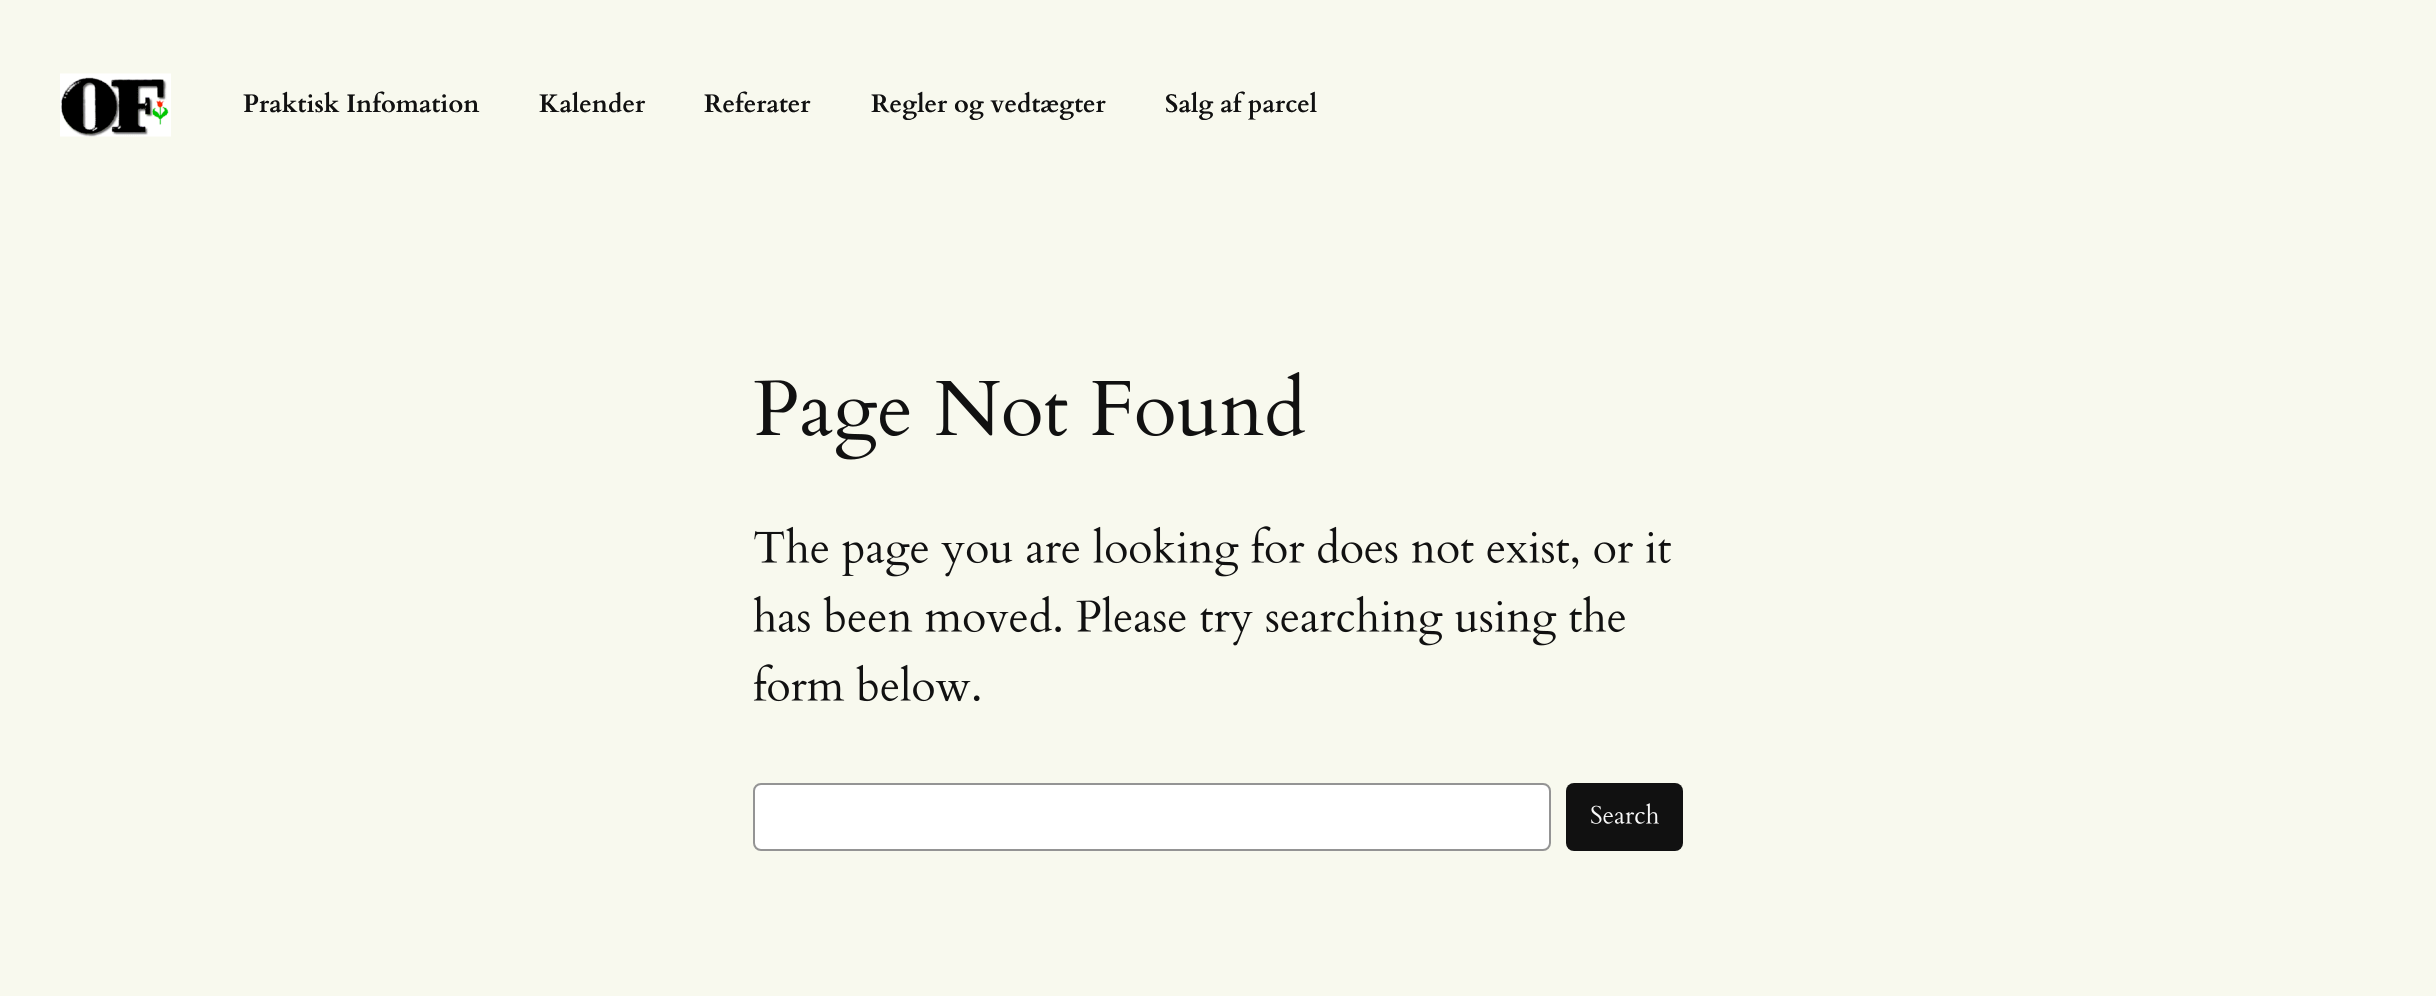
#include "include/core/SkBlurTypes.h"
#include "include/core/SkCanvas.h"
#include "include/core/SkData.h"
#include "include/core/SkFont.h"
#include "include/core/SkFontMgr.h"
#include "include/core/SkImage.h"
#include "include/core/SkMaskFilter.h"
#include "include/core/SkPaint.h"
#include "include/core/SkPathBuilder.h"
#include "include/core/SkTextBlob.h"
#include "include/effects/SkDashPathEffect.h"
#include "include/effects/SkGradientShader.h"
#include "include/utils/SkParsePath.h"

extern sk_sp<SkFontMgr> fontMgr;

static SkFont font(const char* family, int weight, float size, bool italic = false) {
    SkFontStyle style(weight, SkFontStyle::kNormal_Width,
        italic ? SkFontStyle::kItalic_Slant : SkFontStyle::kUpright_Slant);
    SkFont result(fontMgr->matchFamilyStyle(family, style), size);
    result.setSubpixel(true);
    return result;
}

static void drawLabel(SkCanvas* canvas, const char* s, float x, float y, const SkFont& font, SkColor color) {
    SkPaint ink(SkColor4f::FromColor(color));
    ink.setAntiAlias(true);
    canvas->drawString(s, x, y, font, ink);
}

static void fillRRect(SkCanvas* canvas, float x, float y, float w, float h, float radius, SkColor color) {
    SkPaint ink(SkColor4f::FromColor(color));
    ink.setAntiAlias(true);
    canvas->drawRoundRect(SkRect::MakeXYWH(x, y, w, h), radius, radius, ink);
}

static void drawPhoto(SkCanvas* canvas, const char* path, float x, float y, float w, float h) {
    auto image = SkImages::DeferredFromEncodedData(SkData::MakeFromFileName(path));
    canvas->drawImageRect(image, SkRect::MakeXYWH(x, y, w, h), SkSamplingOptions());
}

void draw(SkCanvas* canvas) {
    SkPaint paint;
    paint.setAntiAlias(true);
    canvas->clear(0xFFF8F9EE);
    drawPhoto(canvas, "assets/img1.png", 60, 73, 111, 64);
    SkFont font1 = font("Cardo", 700, 25.25f);
    drawLabel(canvas, "Praktisk Infomation", 243, 112, font1, 0xFF111111);
    drawLabel(canvas, "Kalender", 539, 112, font1, 0xFF111111);
    drawLabel(canvas, "Referater", 704, 112, font1, 0xFF111111);
    drawLabel(canvas, "Regler og vedtægter", 871, 112, font1, 0xFF111111);
    drawLabel(canvas, "Salg af parcel", 1165, 112, font1, 0xFF111111);
    drawPhoto(canvas, "assets/img2.png", 754, 372, 552, 88);
    drawPhoto(canvas, "assets/img3.png", 754, 526, 917, 51);
    drawPhoto(canvas, "assets/img4.png", 753, 595, 872, 51);
    drawPhoto(canvas, "assets/img5.png", 753, 664, 227, 38);
    paint.setColor(0xFFFFFFFF);
    canvas->drawRoundRect(SkRect::MakeXYWH(754, 784, 796, 66), 7, 7, paint);
    paint.setStroke(true);
    paint.setStrokeWidth(2);
    paint.setColor(0xFF949494);
    canvas->drawRoundRect(SkRect::MakeXYWH(754, 784, 796, 66), 7, 7, paint);
    fillRRect(canvas, 1566, 783, 117, 68, 8, 0xFF111111);
    drawPhoto(canvas, "assets/img6.png", 1591, 803, 68, 21);
}
